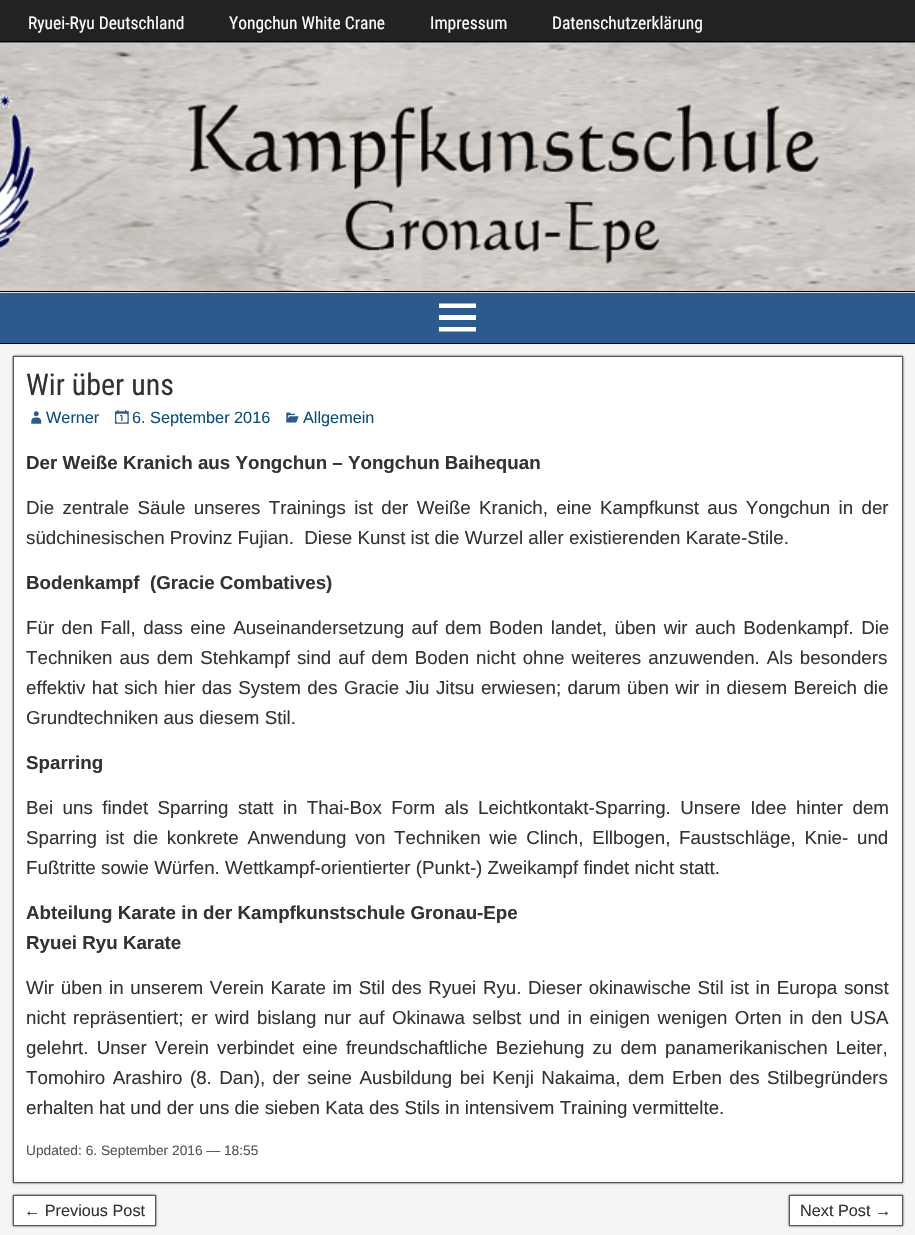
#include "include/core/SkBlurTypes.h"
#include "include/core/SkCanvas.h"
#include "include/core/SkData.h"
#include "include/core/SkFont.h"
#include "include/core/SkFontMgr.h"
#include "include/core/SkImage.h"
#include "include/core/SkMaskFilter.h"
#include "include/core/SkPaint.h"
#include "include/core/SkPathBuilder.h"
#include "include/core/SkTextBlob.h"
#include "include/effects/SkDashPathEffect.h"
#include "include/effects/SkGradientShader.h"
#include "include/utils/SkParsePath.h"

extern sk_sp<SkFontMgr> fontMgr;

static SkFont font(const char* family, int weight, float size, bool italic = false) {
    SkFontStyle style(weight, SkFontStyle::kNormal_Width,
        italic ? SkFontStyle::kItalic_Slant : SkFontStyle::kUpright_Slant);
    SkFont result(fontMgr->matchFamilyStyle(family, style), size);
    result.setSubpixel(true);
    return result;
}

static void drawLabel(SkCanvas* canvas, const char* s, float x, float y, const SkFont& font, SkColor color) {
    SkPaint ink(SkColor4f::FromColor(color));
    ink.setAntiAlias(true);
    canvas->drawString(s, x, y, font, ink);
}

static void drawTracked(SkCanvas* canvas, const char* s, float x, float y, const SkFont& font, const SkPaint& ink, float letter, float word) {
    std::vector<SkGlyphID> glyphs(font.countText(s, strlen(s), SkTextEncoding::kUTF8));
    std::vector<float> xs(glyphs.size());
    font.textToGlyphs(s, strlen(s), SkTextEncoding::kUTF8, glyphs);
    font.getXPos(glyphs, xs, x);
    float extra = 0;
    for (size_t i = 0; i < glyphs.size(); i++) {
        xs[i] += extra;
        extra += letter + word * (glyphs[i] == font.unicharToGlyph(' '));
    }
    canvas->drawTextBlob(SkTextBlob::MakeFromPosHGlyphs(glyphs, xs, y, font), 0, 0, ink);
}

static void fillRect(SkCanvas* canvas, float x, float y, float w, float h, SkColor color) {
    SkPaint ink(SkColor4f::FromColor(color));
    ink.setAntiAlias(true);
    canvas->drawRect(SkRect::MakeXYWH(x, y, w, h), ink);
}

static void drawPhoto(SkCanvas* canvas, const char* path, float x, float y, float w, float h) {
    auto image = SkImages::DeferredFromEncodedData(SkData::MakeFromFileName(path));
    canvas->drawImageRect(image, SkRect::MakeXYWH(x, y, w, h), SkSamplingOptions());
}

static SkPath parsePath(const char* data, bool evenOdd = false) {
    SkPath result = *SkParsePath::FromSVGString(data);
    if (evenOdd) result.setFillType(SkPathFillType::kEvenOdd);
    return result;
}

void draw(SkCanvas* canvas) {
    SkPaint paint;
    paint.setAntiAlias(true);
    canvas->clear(0xFF222222);
    fillRect(canvas, 0, 41, 915, 1, 0xFF000000);
    SkFont font1 = font("Roboto Condensed", 400, 17.5f);
    drawLabel(canvas, "Ryuei-Ryu Deutschland", 28, 29, font1, 0xFFFFFFFF);
    drawLabel(canvas, "Yongchun White Crane", 229, 29, font1, 0xFFFFFFFF);
    drawLabel(canvas, "Impressum", 430, 29, font1, 0xFFFFFFFF);
    drawLabel(canvas, "Datenschutzerklärung", 552, 29, font1, 0xFFFFFFFF);
    fillRect(canvas, 0, 292, 915, 1, 0xFFFFFFFF);
    drawPhoto(canvas, "assets/img1.png", 0, 42, 915, 251);
    fillRect(canvas, 0, 291, 915, 1, 0xFF000000);
    fillRect(canvas, 0, 293, 915, 50, 0xFF2A5A8E);
    fillRect(canvas, 0, 343, 915, 1, 0xFF000000);
    paint.setColor(0xFFFFFFFF);
    canvas->drawPath(parsePath("M439 331.5V327H476V331.5ZM439 303.5H476V308H439ZM439 320V315H476V320Z"), paint);
    fillRect(canvas, 0, 344, 915, 891, 0xFFF5F5F5);
    paint.setColor(0xFF333333);
    paint.setMaskFilter(SkMaskFilter::MakeBlur(kNormal_SkBlurStyle, 1));
    canvas->drawRect(SkRect::MakeXYWH(13, 356, 890, 827), paint);
    paint.setMaskFilter(nullptr);
    paint.setColor(0xFFFFFFFF);
    canvas->drawRect(SkRect::MakeXYWH(13.5f, 356.5f, 889, 826), paint);
    paint.setStroke(true);
    paint.setStrokeWidth(1);
    paint.setColor(0xFF555555);
    canvas->drawRect(SkRect::MakeXYWH(13.5f, 356.5f, 889, 826), paint);
    SkFont font2 = font("Roboto Condensed", 400, 30);
    drawLabel(canvas, "Wir über uns", 26, 395, font2, 0xFF333333);
    drawPhoto(canvas, "assets/img2.png", 31, 411, 11, 13);
    SkFont font3 = font("Liberation Sans", 400, 16.25f);
    drawLabel(canvas, "Werner", 46, 423, font3, 0xFF0E4D7A);
    drawPhoto(canvas, "assets/img3.png", 115, 410, 14, 14);
    drawLabel(canvas, "6. September 2016", 132, 423, font3, 0xFF0E4D7A);
    drawPhoto(canvas, "assets/img4.png", 286, 412, 13, 11);
    drawLabel(canvas, "Allgemein", 303, 423, font3, 0xFF0E4D7A);
    SkFont font4 = font("Arimo", 700, 18.75f);
    drawLabel(canvas, "Der Weiße Kranich aus Yongchun – Yongchun Baihequan", 26, 469, font4, 0xFF333333);
    SkFont font5 = font("Arimo", 400, 18.75f);
    paint.setStroke(false);
    paint.setColor(0xFF333333);
    drawTracked(canvas, "Die zentrale Säule unseres Trainings ist der Weiße Kranich, eine Kampfkunst aus Yongchun in der", 26, 514, font5, paint, 0, 3.1f);
    drawLabel(canvas, "südchinesischen Provinz Fujian.  Diese Kunst ist die Wurzel aller existierenden Karate-Stile.", 26, 544, font5, 0xFF333333);
    drawLabel(canvas, "Bodenkampf  (Gracie Combatives)", 26, 589, font4, 0xFF333333);
    drawTracked(canvas, "Für den Fall, dass eine Auseinandersetzung auf dem Boden landet, üben wir auch Bodenkampf. Die", 26, 634, font5, paint, 0, 2.25f);
    drawTracked(canvas, "Techniken aus dem Stehkampf sind auf dem Boden nicht ohne weiteres anzuwenden. Als besonders", 26, 664, font5, paint, 0, 1.8f);
    drawTracked(canvas, "effektiv hat sich hier das System des Gracie Jiu Jitsu erwiesen; darum üben wir in diesem Bereich die", 26, 694, font5, paint, 0, 1.2f);
    drawLabel(canvas, "Grundtechniken aus diesem Stil.", 26, 724, font5, 0xFF333333);
    drawLabel(canvas, "Sparring", 26, 769, font4, 0xFF333333);
    drawTracked(canvas, "Bei uns findet Sparring statt in Thai-Box Form als Leichtkontakt-Sparring. Unsere Idee hinter dem", 26, 814, font5, paint, 0, 4.25f);
    drawTracked(canvas, "Sparring ist die konkrete Anwendung von Techniken wie Clinch, Ellbogen, Faustschläge, Knie- und", 26, 844, font5, paint, 0, 3.5f);
    drawLabel(canvas, "Fußtritte sowie Würfen. Wettkampf-orientierter (Punkt-) Zweikampf findet nicht statt.", 26, 874, font5, 0xFF333333);
    drawLabel(canvas, "Abteilung Karate in der Kampfkunstschule Gronau-Epe", 26, 919, font4, 0xFF333333);
    drawLabel(canvas, "Ryuei Ryu Karate", 26, 949, font4, 0xFF333333);
    drawTracked(canvas, "Wir üben in unserem Verein Karate im Stil des Ryuei Ryu. Dieser okinawische Stil ist in Europa sonst", 26, 994, font5, paint, 0, 1.4f);
    drawTracked(canvas, "nicht repräsentiert; er wird bislang nur auf Okinawa selbst und in einigen wenigen Orten in den USA", 26, 1024, font5, paint, 0, 2.25f);
    drawTracked(canvas, "gelehrt. Unser Verein verbindet eine freundschaftliche Beziehung zu dem panamerikanischen Leiter,", 26, 1054, font5, paint, 0, 2.9f);
    drawTracked(canvas, "Tomohiro Arashiro (8. Dan), der seine Ausbildung bei Kenji Nakaima, dem Erben des Stilbegründers", 26, 1084, font5, paint, 0, 2.25f);
    drawLabel(canvas, "erhalten hat und der uns die sieben Kata des Stils in intensivem Training vermittelte.", 26, 1114, font5, 0xFF333333);
    SkFont font6 = font("Liberation Sans", 400, 13.75f);
    drawLabel(canvas, "Updated: 6. September 2016 — 18:55", 26, 1155, font6, 0xFF555555);
    paint.setMaskFilter(SkMaskFilter::MakeBlur(kNormal_SkBlurStyle, 1));
    canvas->drawRect(SkRect::MakeXYWH(13, 1195, 143, 31), paint);
    paint.setMaskFilter(nullptr);
    paint.setColor(0xFFFFFFFF);
    canvas->drawRect(SkRect::MakeXYWH(13.5f, 1195.5f, 142, 30), paint);
    paint.setStroke(true);
    paint.setColor(0xFF555555);
    canvas->drawRect(SkRect::MakeXYWH(13.5f, 1195.5f, 142, 30), paint);
    drawLabel(canvas, "← Previous Post", 24, 1216, font3, 0xFF333333);
    paint.setStroke(false);
    paint.setColor(0xFF333333);
    paint.setMaskFilter(SkMaskFilter::MakeBlur(kNormal_SkBlurStyle, 1));
    canvas->drawRect(SkRect::MakeXYWH(789, 1195, 114, 31), paint);
    paint.setMaskFilter(nullptr);
    paint.setColor(0xFFFFFFFF);
    canvas->drawRect(SkRect::MakeXYWH(789.5f, 1195.5f, 113, 30), paint);
    paint.setStroke(true);
    paint.setColor(0xFF555555);
    canvas->drawRect(SkRect::MakeXYWH(789.5f, 1195.5f, 113, 30), paint);
    drawLabel(canvas, "Next Post →", 800, 1216, font3, 0xFF333333);
}
